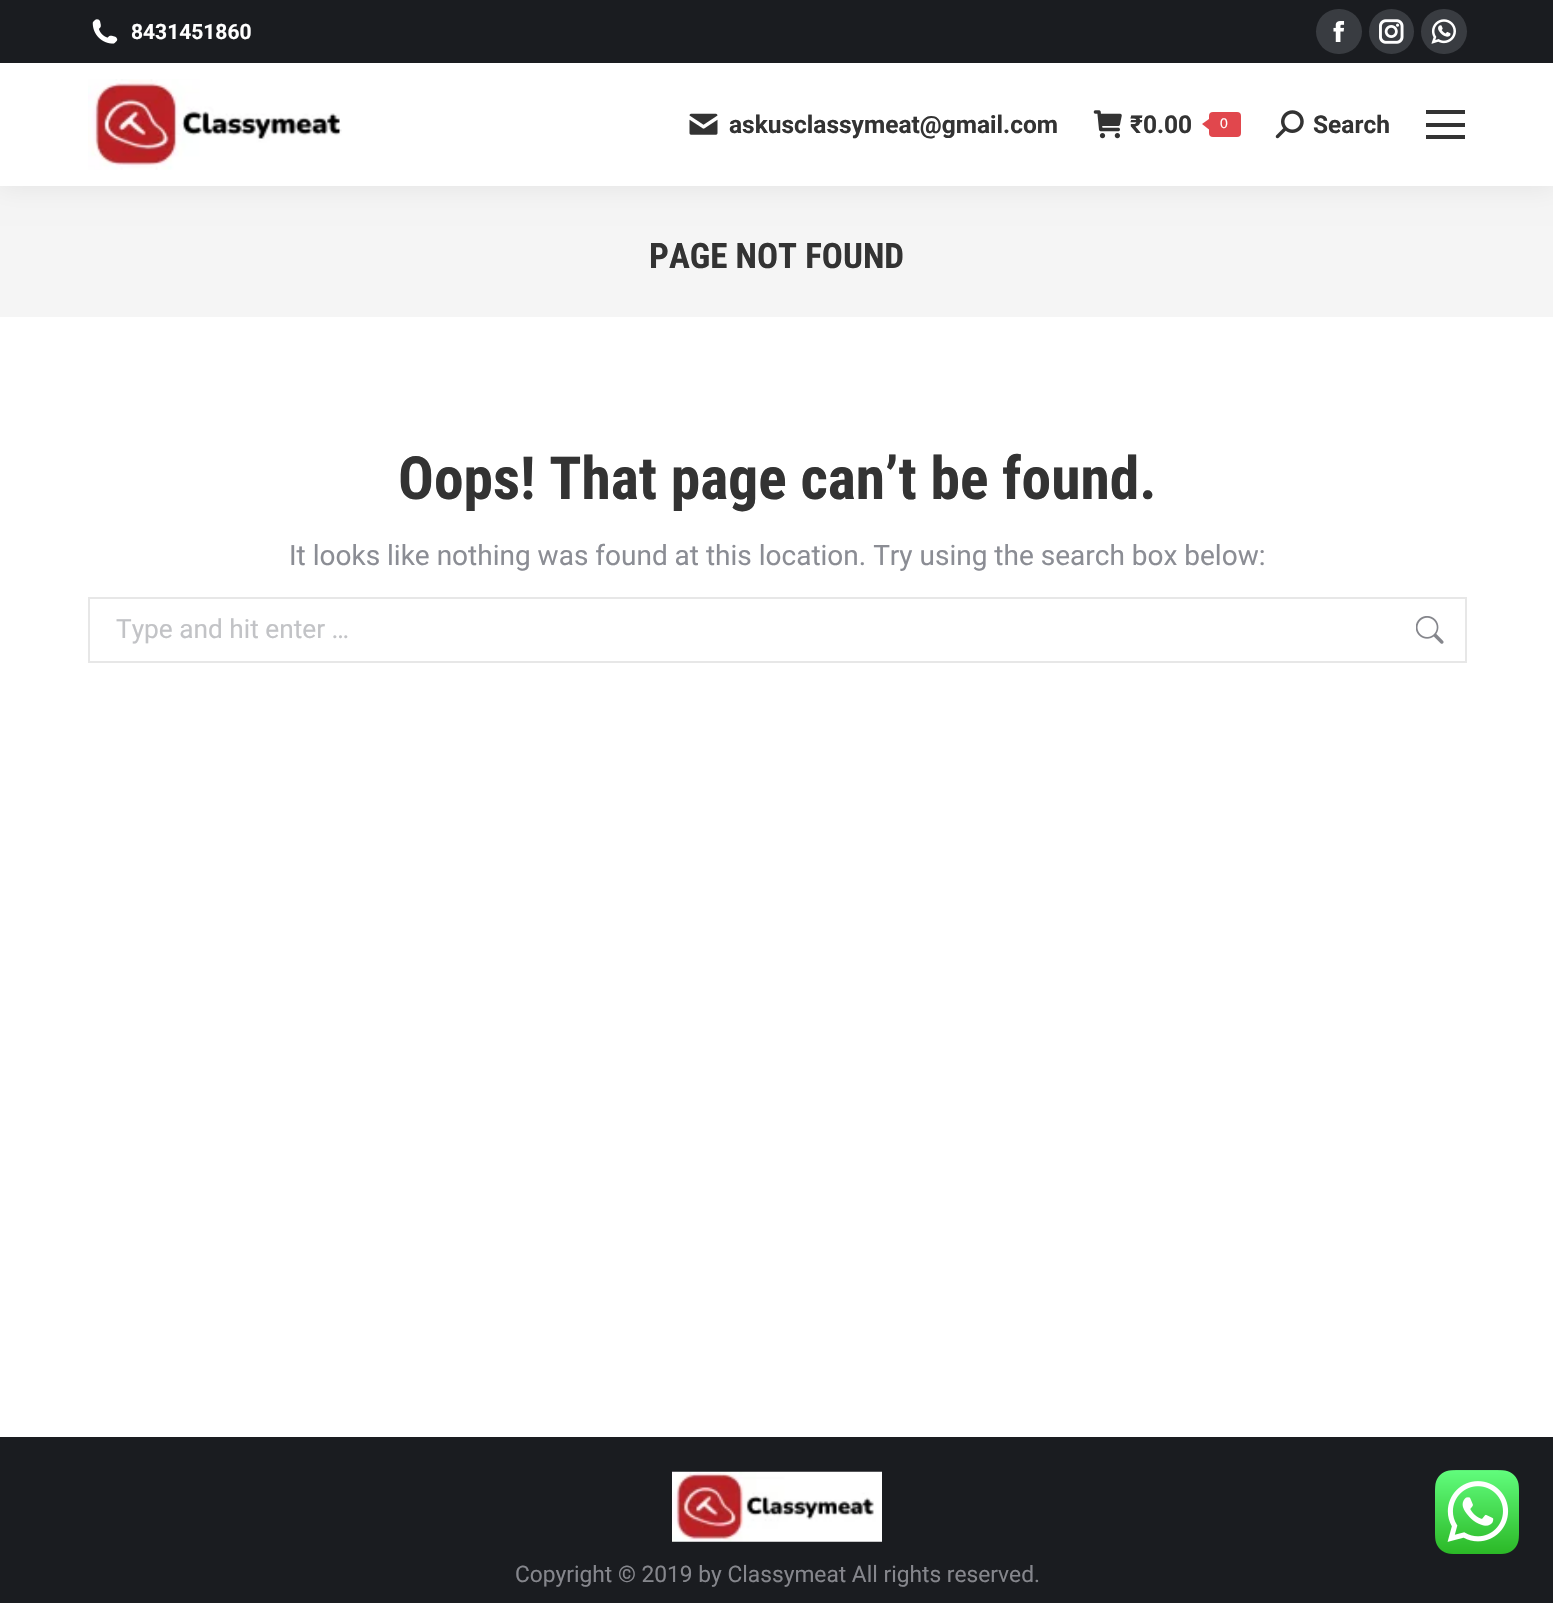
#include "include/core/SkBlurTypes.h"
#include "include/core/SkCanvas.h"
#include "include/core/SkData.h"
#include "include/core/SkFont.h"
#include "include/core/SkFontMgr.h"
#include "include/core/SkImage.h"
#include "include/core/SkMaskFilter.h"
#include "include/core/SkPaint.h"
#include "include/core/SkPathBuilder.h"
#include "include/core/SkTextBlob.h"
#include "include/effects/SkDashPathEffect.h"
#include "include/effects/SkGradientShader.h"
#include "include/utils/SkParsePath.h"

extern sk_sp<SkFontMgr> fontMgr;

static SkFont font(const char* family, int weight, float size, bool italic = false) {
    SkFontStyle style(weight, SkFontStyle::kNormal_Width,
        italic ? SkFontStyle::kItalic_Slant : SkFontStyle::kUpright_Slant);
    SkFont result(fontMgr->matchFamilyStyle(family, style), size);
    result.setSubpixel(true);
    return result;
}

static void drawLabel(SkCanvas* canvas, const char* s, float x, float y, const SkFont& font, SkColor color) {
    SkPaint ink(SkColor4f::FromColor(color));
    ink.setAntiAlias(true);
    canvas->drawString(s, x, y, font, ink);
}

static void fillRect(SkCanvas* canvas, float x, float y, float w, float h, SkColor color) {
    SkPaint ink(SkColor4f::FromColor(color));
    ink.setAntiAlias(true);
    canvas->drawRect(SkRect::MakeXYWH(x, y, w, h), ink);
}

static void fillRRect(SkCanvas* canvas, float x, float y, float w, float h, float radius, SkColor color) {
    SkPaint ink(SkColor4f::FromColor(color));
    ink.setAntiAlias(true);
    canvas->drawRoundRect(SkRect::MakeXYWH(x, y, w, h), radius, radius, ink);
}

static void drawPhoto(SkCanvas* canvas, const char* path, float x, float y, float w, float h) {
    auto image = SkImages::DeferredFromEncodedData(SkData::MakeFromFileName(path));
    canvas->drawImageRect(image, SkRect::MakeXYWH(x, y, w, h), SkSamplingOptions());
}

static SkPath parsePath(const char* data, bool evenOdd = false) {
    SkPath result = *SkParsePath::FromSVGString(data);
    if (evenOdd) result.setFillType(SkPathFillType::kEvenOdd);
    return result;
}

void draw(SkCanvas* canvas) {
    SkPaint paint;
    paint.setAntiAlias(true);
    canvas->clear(0xFFFFFFFF);
    fillRect(canvas, 0, 186, 1553, 131, 0xFFF5F5F5);
    paint.setColor(0x12000000);
    paint.setMaskFilter(SkMaskFilter::MakeBlur(kNormal_SkBlurStyle, 13));
    canvas->drawRect(SkRect::MakeXYWH(-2, -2, 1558, 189), paint);
    paint.setMaskFilter(nullptr);
    fillRect(canvas, 0, 63, 1553, 123, 0xFFFFFFFF);
    fillRect(canvas, 0, 0, 1553, 63, 0xFF1A1C20);
    drawPhoto(canvas, "assets/img1.png", 92, 19, 26, 25);
    SkFont font1 = font("Roboto", 700, 21);
    drawLabel(canvas, "8431451860", 131, 39, font1, 0xFFFFFFFF);
    fillRRect(canvas, 1316, 9, 46, 45, 22.5f, 0xFF393C41);
    drawPhoto(canvas, "assets/img2.png", 1333, 21, 12, 21);
    paint.setColor(0xFF393C41);
    canvas->drawCircle(1391.5f, 31.5f, 22.5f, paint);
    drawPhoto(canvas, "assets/img3.png", 1379, 19, 25, 25);
    fillRRect(canvas, 1421, 9, 46, 45, 22.5f, 0xFF393C41);
    drawPhoto(canvas, "assets/img4.png", 1431, 19, 25, 25);
    drawPhoto(canvas, "assets/img5.png", 88, 79, 254, 91);
    drawPhoto(canvas, "assets/img6.png", 689, 113, 29, 22);
    SkFont font2 = font("Roboto", 700, 24.5f);
    drawLabel(canvas, "askusclassymeat@gmail.com", 729, 133, font2, 0xFF333333);
    drawPhoto(canvas, "assets/img7.png", 1093, 110, 29, 29);
    drawLabel(canvas, "₹0.00", 1130, 133, font2, 0xFF333333);
    fillRRect(canvas, 1209, 112, 32, 25, 4, 0xFFE1474D);
    paint.setColor(0xFFE1474D);
    canvas->drawPath(parsePath("M1209 119V129.5L1202 124Z"), paint);
    SkFont font3 = font("Liberation Sans", 400, 14);
    drawLabel(canvas, "0", 1220, 128, font3, 0xFFFFFFFF);
    drawPhoto(canvas, "assets/img8.png", 1275, 110, 29, 29);
    drawLabel(canvas, "Search", 1313, 133, font2, 0xFF333333);
    fillRect(canvas, 1426, 110, 39, 4, 0xFF333333);
    fillRect(canvas, 1426, 123, 39, 4, 0xFF333333);
    fillRect(canvas, 1426, 135, 39, 4, 0xFF333333);
    SkFont font4 = font("Roboto Condensed", 700, 35);
    drawLabel(canvas, "PAGE NOT FOUND", 649, 268, font4, 0xFF333333);
    SkFont font5 = font("Roboto Condensed", 700, 59.5f);
    drawLabel(canvas, "Oops! That page can’t be found.", 398, 499, font5, 0xFF333333);
    SkFont font6 = font("Roboto", 400, 28);
    drawLabel(canvas, "It looks like nothing was found at this location. Try using the search box below:", 289, 565, font6, 0xFF8B8D94);
    paint.setStroke(true);
    paint.setStrokeWidth(2);
    paint.setColor(0xFFE7E7E7);
    canvas->drawRect(SkRect::MakeXYWH(89, 598, 1377, 64), paint);
    SkFont font7 = font("Roboto", 400, 26.25f);
    drawLabel(canvas, "Type and hit enter …", 116, 638, font7, 0xFFC2C3C6);
    drawPhoto(canvas, "assets/img9.png", 1416, 616, 28, 28);
    fillRect(canvas, 0, 1437, 1553, 166, 0xFF1A1C20);
    drawPhoto(canvas, "assets/img10.png", 672, 1471, 210, 71);
    SkFont font8 = font("Roboto", 400, 22.75f);
    drawLabel(canvas, "Copyright © 2019 by Classymeat All rights reserved.", 515, 1582, font8, 0xFF85868C);
    drawPhoto(canvas, "assets/img11.png", 1435, 1470, 84, 84);
}
